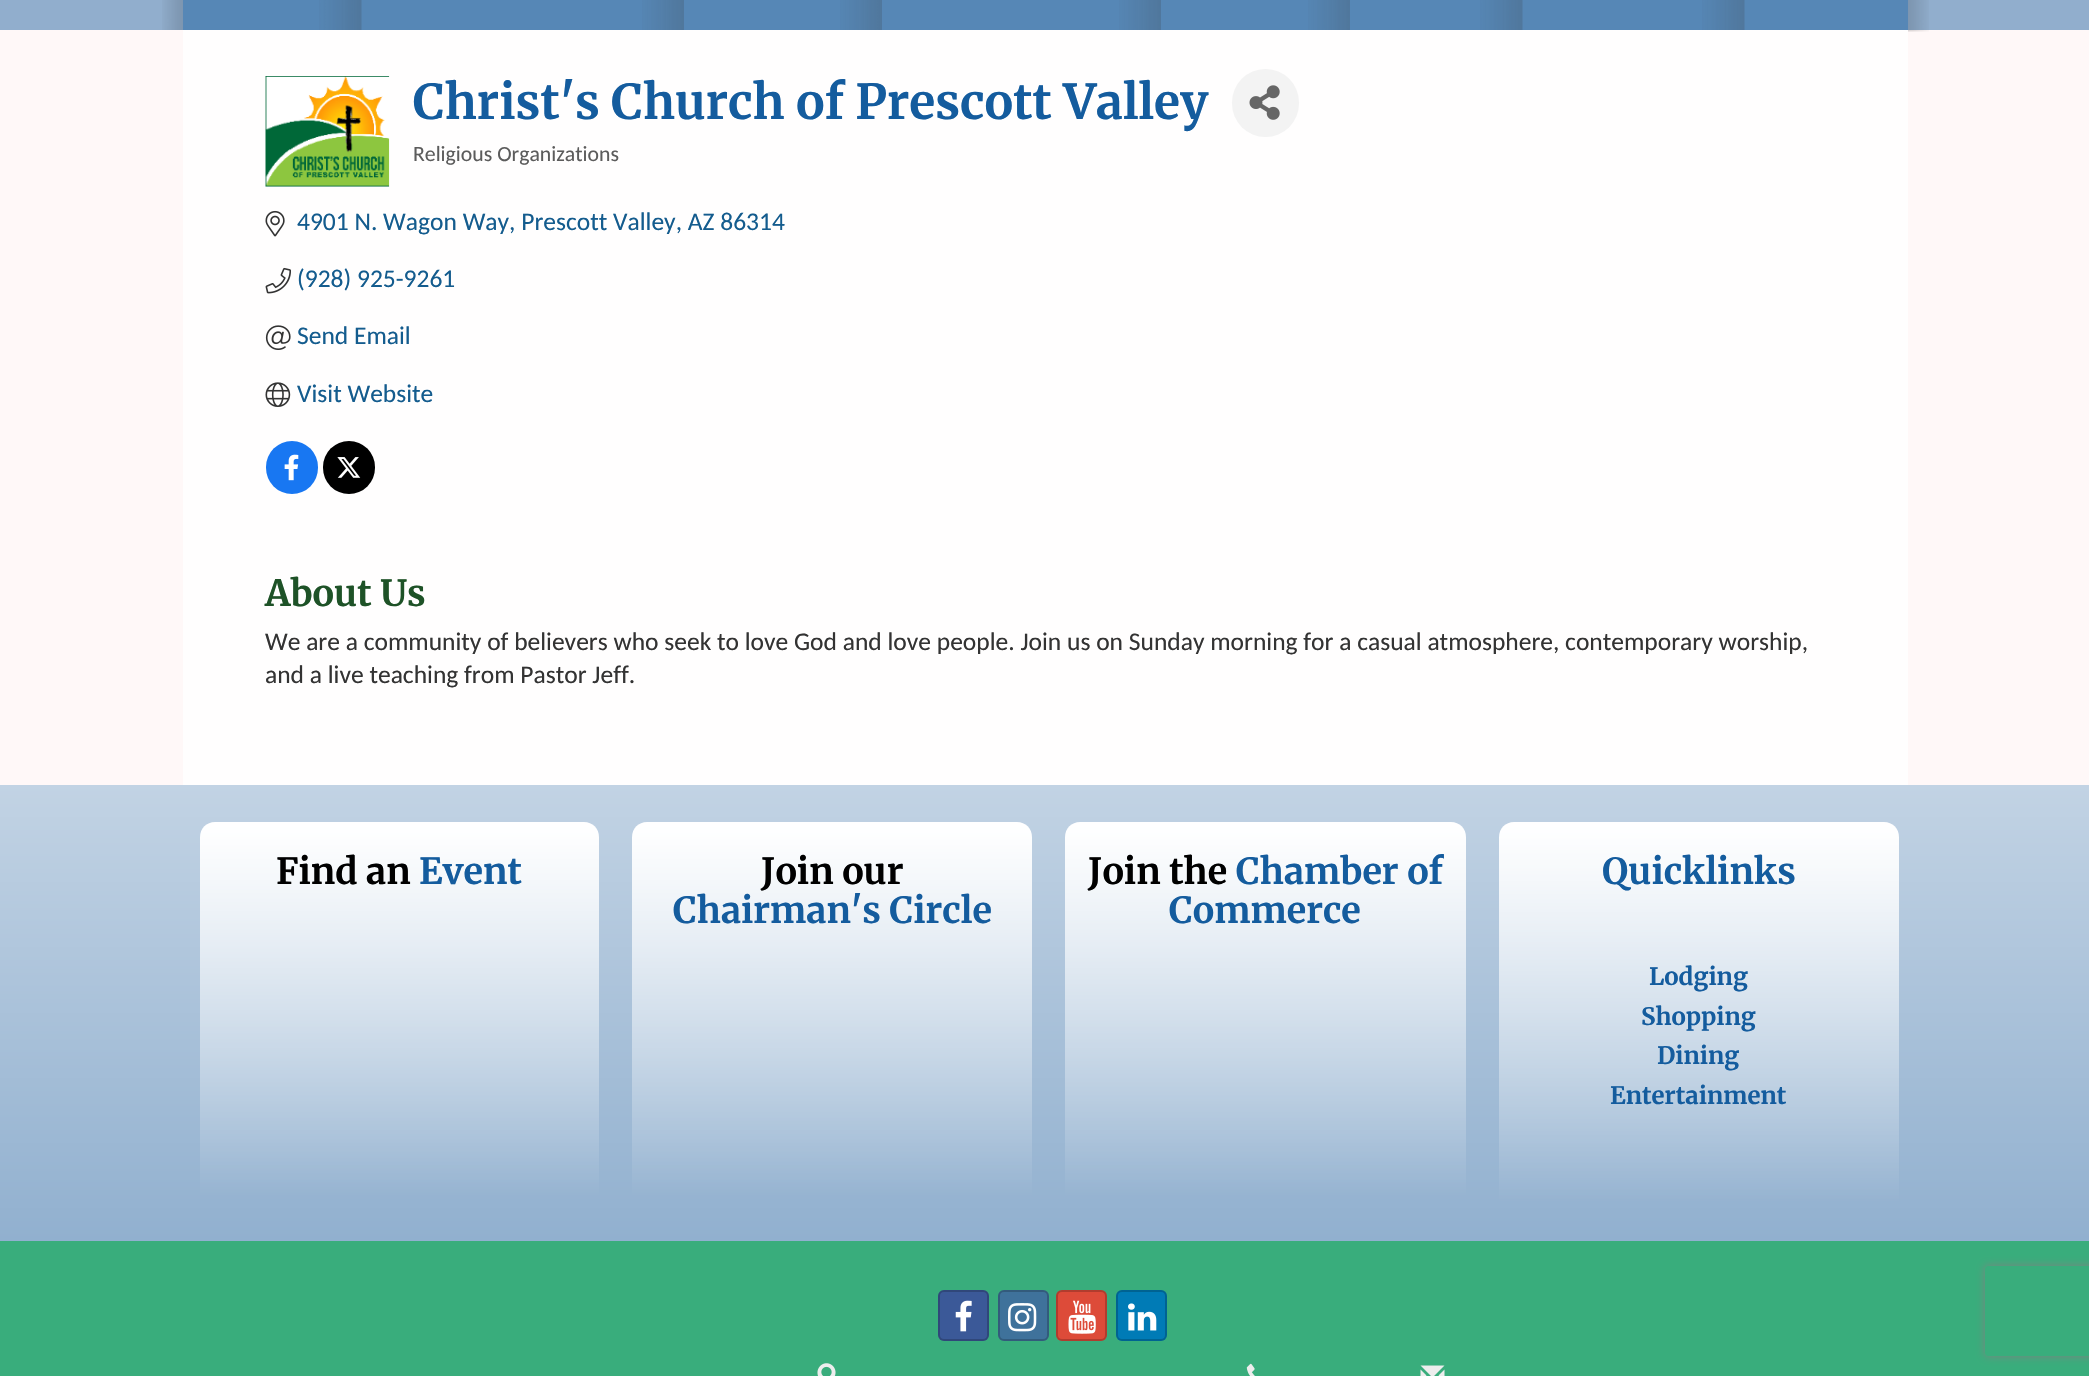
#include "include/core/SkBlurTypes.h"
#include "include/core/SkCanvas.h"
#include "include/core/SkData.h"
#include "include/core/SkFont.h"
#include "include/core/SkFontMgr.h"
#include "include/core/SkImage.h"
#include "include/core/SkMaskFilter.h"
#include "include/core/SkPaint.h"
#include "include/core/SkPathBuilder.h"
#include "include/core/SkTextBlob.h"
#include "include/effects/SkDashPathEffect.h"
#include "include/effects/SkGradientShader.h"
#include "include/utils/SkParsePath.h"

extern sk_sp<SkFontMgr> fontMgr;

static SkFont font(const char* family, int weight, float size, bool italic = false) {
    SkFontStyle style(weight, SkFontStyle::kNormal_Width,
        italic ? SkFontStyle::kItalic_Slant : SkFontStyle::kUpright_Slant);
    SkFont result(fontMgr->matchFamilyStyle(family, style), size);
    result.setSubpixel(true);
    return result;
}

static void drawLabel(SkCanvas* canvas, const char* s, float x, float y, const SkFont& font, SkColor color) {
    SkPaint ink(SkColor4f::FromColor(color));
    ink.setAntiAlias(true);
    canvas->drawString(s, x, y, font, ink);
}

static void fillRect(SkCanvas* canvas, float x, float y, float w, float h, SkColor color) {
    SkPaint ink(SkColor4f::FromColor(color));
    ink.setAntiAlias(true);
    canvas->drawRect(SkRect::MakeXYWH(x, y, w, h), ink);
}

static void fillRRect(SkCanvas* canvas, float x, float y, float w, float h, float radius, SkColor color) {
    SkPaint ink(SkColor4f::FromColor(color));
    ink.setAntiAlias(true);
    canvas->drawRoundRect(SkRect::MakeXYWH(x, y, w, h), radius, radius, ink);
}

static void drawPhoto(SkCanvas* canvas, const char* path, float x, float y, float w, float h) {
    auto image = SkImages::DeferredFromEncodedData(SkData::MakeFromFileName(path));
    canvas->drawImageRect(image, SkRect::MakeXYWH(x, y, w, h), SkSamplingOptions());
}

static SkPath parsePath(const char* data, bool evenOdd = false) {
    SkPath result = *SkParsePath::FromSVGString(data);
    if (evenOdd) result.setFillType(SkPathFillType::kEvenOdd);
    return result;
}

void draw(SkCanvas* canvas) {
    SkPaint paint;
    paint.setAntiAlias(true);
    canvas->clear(0xFFFFF8F8);
    fillRect(canvas, 0, 0, 2089, 30, 0xFF91AECD);
    drawPhoto(canvas, "assets/img1.png", 162, 0, 21, 30);
    fillRect(canvas, 183, 0, 1725, 30, 0xFF5687B6);
    drawPhoto(canvas, "assets/img2.png", 319, 0, 43, 30);
    drawPhoto(canvas, "assets/img3.png", 642, 0, 42, 30);
    drawPhoto(canvas, "assets/img4.png", 840, 0, 42, 30);
    drawPhoto(canvas, "assets/img3.png", 1119, 0, 42, 30);
    drawPhoto(canvas, "assets/img3.png", 1308, 0, 42, 30);
    drawPhoto(canvas, "assets/img5.png", 1480, 0, 43, 30);
    drawPhoto(canvas, "assets/img5.png", 1702, 0, 43, 30);
    drawPhoto(canvas, "assets/img6.png", 1908, 0, 21, 32);
    fillRect(canvas, 183, 30, 1725, 755, 0xFFFFFEFE);
    drawPhoto(canvas, "assets/img7.png", 265, 76, 125, 111);
    SkFont font1 = font("Merriweather", 700, 48);
    drawLabel(canvas, "Christ's Church of Prescott Valley", 413, 119, font1, 0xFF145C9E);
    fillRRect(canvas, 1232, 69, 67, 68, 33.5f, 0xFFF3F3F3);
    drawPhoto(canvas, "assets/img8.png", 1249, 85, 31, 35);
    SkFont font2 = font("Carlito", 400, 21.75f);
    drawLabel(canvas, "Religious Organizations", 413, 161, font2, 0xFF5C5C5C);
    drawPhoto(canvas, "assets/img9.png", 265, 210, 20, 27);
    SkFont font3 = font("Carlito", 400, 25.5f);
    drawLabel(canvas, "4901 N. Wagon Way, Prescott Valley, AZ 86314", 297, 230, font3, 0xFF145C8E);
    drawPhoto(canvas, "assets/img10.png", 265, 267, 26, 27);
    drawLabel(canvas, "(928) 925-9261", 297, 287, font3, 0xFF145C8E);
    drawPhoto(canvas, "assets/img11.png", 265, 325, 26, 25);
    drawLabel(canvas, "Send Email", 297, 344, font3, 0xFF145C8E);
    drawPhoto(canvas, "assets/img12.png", 265, 382, 26, 25);
    drawLabel(canvas, "Visit Website", 297, 402, font3, 0xFF145C8E);
    fillRRect(canvas, 266, 441, 52, 53, 26, 0xFF1877F2);
    drawPhoto(canvas, "assets/img13.png", 284, 454, 15, 27);
    fillRRect(canvas, 323, 441, 52, 53, 26, 0xFF000000);
    drawPhoto(canvas, "assets/img14.png", 337, 457, 24, 21);
    SkFont font4 = font("Merriweather", 700, 36);
    drawLabel(canvas, "About Us", 265, 606, font4, 0xFF1E5227);
    drawLabel(canvas, "We are a community of believers who seek to love God and love people. Join us on Sunday morning for a casual atmosphere, contemporary worship,", 265, 650, font3, 0xFF333333);
    drawLabel(canvas, "and a live teaching from Pastor Jeff.", 265, 683, font3, 0xFF333333);
    {
        const SkColor colors[] = {0xFFC2D3E4, 0xFF91B0CF};
        const float stops[] = {0, 1};
        const SkPoint ends[] = {{1045, 784}, {1045, 1241}};
        paint.setShader(SkGradientShader::MakeLinear(ends, colors, stops, 2, SkTileMode::kClamp));
        paint.setAlpha(255);
    }
    canvas->drawRect(SkRect::MakeXYWH(0, 785, 2089, 456), paint);
    {
        const SkColor colors[] = {0xFFFFFFFF, 0x00FFFFFF};
        const float stops[] = {0, 1};
        const SkPoint ends[] = {{399, 822}, {399, 1197}};
        paint.setShader(SkGradientShader::MakeLinear(ends, colors, stops, 2, SkTileMode::kClamp));
        paint.setAlpha(255);
    }
    canvas->drawPath(parsePath("M215 822H584C592.5 822 599 828.5 599 837V1197H200V837C200 828.5 206.5 822 215 822Z"), paint);
    drawLabel(canvas, "Find an", 276, 884, font4, 0xFF000000);
    drawLabel(canvas, "Event", 419, 884, font4, 0xFF145C9E);
    {
        const SkColor colors[] = {0xFFFFFFFF, 0x00FFFFFF};
        const float stops[] = {0, 1};
        const SkPoint ends[] = {{832, 822}, {832, 1197}};
        paint.setShader(SkGradientShader::MakeLinear(ends, colors, stops, 2, SkTileMode::kClamp));
        paint.setAlpha(255);
    }
    canvas->drawPath(parsePath("M647 822H1017C1025.5 822 1032 828.5 1032 837V1197H632V837C632 828.5 638.5 822 647 822Z"), paint);
    drawLabel(canvas, "Join our", 761, 884, font4, 0xFF000000);
    drawLabel(canvas, "Chairman's Circle", 673, 923, font4, 0xFF145C9E);
    {
        const SkColor colors[] = {0xFFFFFFFF, 0x00FFFFFF};
        const float stops[] = {0, 1};
        const SkPoint ends[] = {{1265, 822}, {1265, 1197}};
        paint.setShader(SkGradientShader::MakeLinear(ends, colors, stops, 2, SkTileMode::kClamp));
        paint.setAlpha(255);
    }
    canvas->drawPath(parsePath("M1080 822H1451C1459.5 822 1466 828.5 1466 837V1197H1065V837C1065 828.5 1071.5 822 1080 822Z"), paint);
    drawLabel(canvas, "Join the", 1088, 884, font4, 0xFF000000);
    drawLabel(canvas, "Chamber of", 1236, 884, font4, 0xFF145C9E);
    drawLabel(canvas, "Commerce", 1169, 923, font4, 0xFF145C9E);
    {
        const SkColor colors[] = {0xFFFFFFFF, 0x00FFFFFF};
        const float stops[] = {0, 1};
        const SkPoint ends[] = {{1699, 822}, {1699, 1203}};
        paint.setShader(SkGradientShader::MakeLinear(ends, colors, stops, 2, SkTileMode::kClamp));
        paint.setAlpha(255);
    }
    canvas->drawPath(parsePath("M1514 822H1884C1892.5 822 1899 828.5 1899 837V1203H1499V837C1499 828.5 1505.5 822 1514 822Z"), paint);
    drawLabel(canvas, "Quicklinks", 1602, 884, font4, 0xFF145C9E);
    SkFont font5 = font("Merriweather", 700, 24);
    drawLabel(canvas, "Lodging", 1649, 985, font5, 0xFF145C9E);
    drawLabel(canvas, "Shopping", 1641, 1025, font5, 0xFF145C9E);
    drawLabel(canvas, "Dining", 1657, 1064, font5, 0xFF145C9E);
    drawLabel(canvas, "Entertainment", 1610, 1104, font5, 0xFF145C9E);
    fillRect(canvas, 0, 1241, 2089, 135, 0xFF39AD7C);
    fillRRect(canvas, 938, 1290, 51, 51, 6, 0xFF3B5998);
    paint.setStroke(true);
    paint.setStrokeWidth(2);
    paint.setShader(nullptr);
    paint.setColor(0x33000000);
    canvas->drawRoundRect(SkRect::MakeXYWH(939, 1291, 49, 49), 5, 5, paint);
    drawPhoto(canvas, "assets/img15.png", 955, 1300, 17, 32);
    fillRRect(canvas, 998, 1290, 51, 51, 6, 0xFF3F729B);
    canvas->drawRoundRect(SkRect::MakeXYWH(999, 1291, 49, 49), 5, 5, paint);
    drawPhoto(canvas, "assets/img16.png", 1008, 1303, 29, 29);
    fillRRect(canvas, 1056, 1290, 51, 51, 6, 0xFFDD4B39);
    canvas->drawRoundRect(SkRect::MakeXYWH(1057, 1291, 49, 49), 5, 5, paint);
    drawPhoto(canvas, "assets/img17.png", 1068, 1300, 28, 34);
    fillRRect(canvas, 1116, 1290, 51, 51, 6, 0xFF007BB6);
    canvas->drawRoundRect(SkRect::MakeXYWH(1117, 1291, 49, 49), 5, 5, paint);
    drawPhoto(canvas, "assets/img18.png", 1128, 1303, 29, 28);
    drawPhoto(canvas, "assets/img19.png", 817, 1363, 19, 13);
    drawPhoto(canvas, "assets/img20.png", 1246, 1363, 9, 13);
    drawPhoto(canvas, "assets/img21.png", 1420, 1365, 25, 11);
    canvas->save();
    canvas->clipPath(parsePath("M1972 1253H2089V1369H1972ZM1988 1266H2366C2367.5 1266 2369 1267.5 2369 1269V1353C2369 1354.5 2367.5 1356 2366 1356H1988C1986.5 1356 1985 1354.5 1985 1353V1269C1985 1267.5 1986.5 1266 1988 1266Z", true), true);
    paint.setStroke(false);
    paint.setColor(0xFF808080);
    paint.setMaskFilter(SkMaskFilter::MakeBlur(kNormal_SkBlurStyle, 4));
    canvas->drawRoundRect(SkRect::MakeXYWH(1985, 1266, 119, 90), 3, 3, paint);
    paint.setMaskFilter(nullptr);
    canvas->restore();
}
